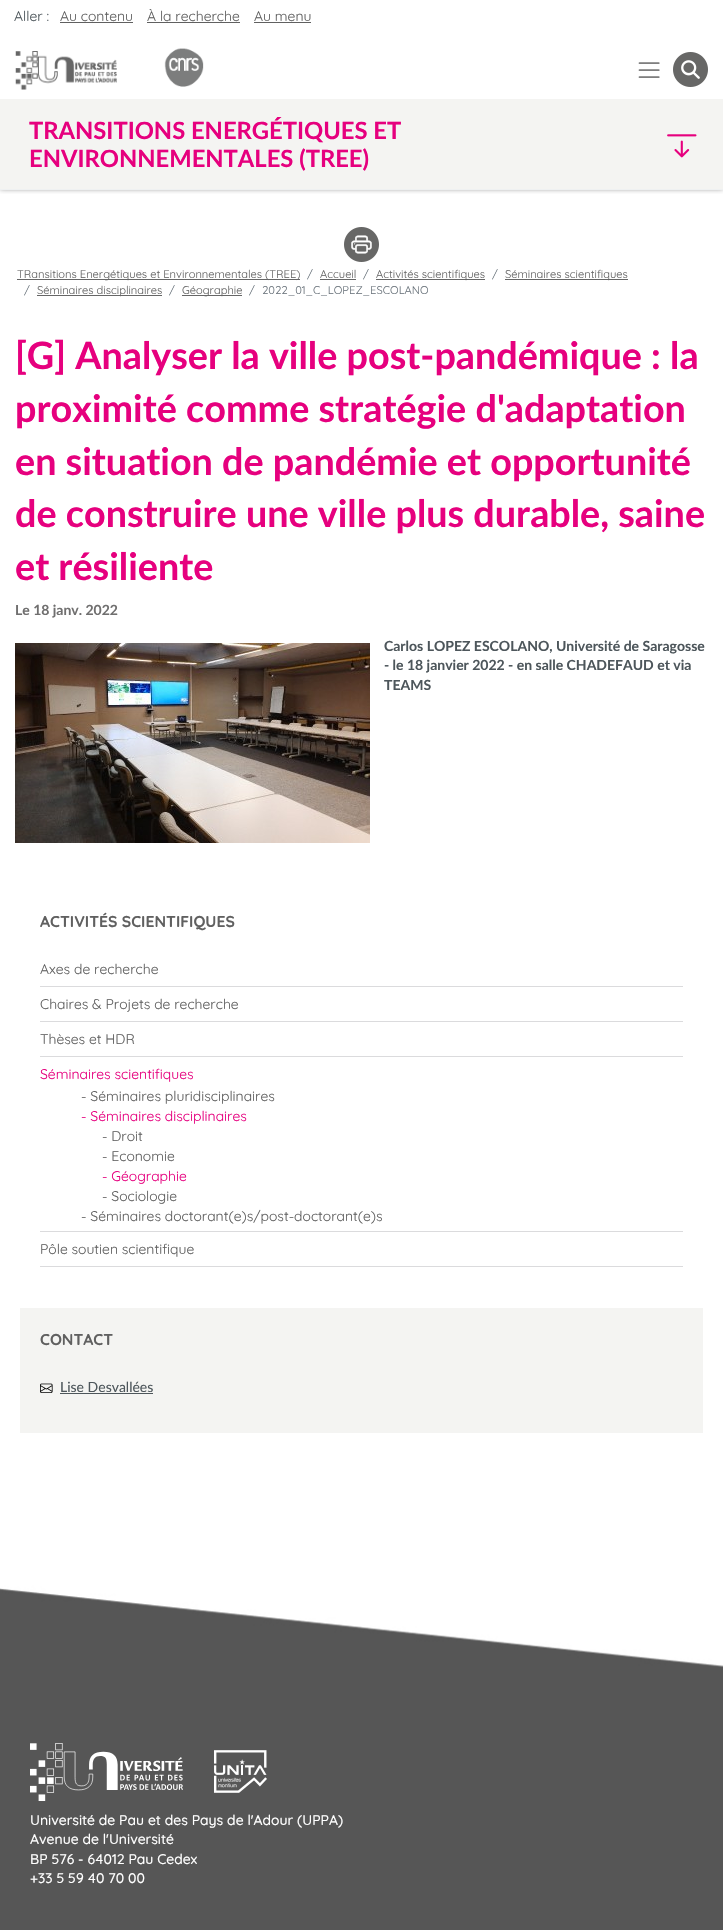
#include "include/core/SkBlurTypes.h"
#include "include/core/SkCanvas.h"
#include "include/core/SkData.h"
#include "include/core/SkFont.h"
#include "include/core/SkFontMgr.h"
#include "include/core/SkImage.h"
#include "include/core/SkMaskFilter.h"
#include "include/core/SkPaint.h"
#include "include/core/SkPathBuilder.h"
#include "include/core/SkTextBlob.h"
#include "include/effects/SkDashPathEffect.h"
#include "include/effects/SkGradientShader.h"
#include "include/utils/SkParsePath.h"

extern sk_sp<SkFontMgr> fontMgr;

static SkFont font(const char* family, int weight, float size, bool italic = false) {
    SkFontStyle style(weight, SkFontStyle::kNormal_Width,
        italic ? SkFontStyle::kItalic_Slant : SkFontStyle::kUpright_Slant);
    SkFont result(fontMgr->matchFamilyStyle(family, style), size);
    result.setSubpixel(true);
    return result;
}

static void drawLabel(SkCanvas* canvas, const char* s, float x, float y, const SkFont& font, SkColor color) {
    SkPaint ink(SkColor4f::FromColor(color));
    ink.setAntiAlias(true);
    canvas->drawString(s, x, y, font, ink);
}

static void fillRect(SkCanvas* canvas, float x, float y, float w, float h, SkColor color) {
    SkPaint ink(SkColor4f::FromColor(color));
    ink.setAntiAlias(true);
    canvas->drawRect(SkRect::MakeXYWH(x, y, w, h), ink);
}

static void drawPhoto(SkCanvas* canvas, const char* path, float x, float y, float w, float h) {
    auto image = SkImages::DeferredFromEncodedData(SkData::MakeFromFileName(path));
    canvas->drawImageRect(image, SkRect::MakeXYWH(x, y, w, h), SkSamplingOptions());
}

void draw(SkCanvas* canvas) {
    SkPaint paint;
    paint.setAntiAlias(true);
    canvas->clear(0xFFFFFFFF);
    canvas->save();
    canvas->clipRect(SkRect::MakeXYWH(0, 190, 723, 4));
    paint.setColor(0xFF8A8A8A);
    paint.setMaskFilter(SkMaskFilter::MakeBlur(kNormal_SkBlurStyle, 2.5f));
    canvas->drawRect(SkRect::MakeXYWH(0, 0, 723, 189), paint);
    paint.setMaskFilter(nullptr);
    canvas->restore();
    SkFont font1 = font("Quicksand", 300, 14);
    drawLabel(canvas, "Aller :", 14, 21, font1, 0xFF4D565B);
    drawLabel(canvas, "Au contenu", 60, 21, font1, 0xFF606060);
    fillRect(canvas, 60, 22, 73, 1, 0xFF606060);
    drawLabel(canvas, "À la recherche", 147, 21, font1, 0xFF606060);
    fillRect(canvas, 147, 22, 93, 1, 0xFF606060);
    drawLabel(canvas, "Au menu", 254, 21, font1, 0xFF606060);
    fillRect(canvas, 254, 22, 57, 1, 0xFF606060);
    drawPhoto(canvas, "assets/img1.png", 15, 51, 102, 39);
    drawPhoto(canvas, "assets/img2.png", 164, 48, 40, 39);
    drawPhoto(canvas, "assets/img3.png", 638, 62, 22, 16);
    drawPhoto(canvas, "assets/img4.png", 673, 52, 35, 35);
    fillRect(canvas, 0, 99, 723, 90, 0xFFF4F4F2);
    SkFont font2 = font("Lato", 700, 23.75f);
    drawLabel(canvas, "TRANSITIONS ENERGÉTIQUES ET", 29, 139, font2, 0xFFE6007E);
    drawLabel(canvas, "ENVIRONNEMENTALES (TREE)", 29, 167, font2, 0xFFE6007E);
    drawPhoto(canvas, "assets/img5.png", 667, 134, 30, 24);
    fillRect(canvas, 0, 189, 723, 1, 0xFFEFF1F2);
    drawPhoto(canvas, "assets/img6.png", 344, 227, 35, 35);
    fillRect(canvas, 17, 279, 283, 1, 0xFF666666);
    SkFont font3 = font("Quicksand", 300, 11.2f);
    drawLabel(canvas, "TRansitions Energétiques et Environnementales (TREE)", 17, 278, font3, 0xFF666666);
    drawLabel(canvas, "/", 307, 278, font3, 0xFF6C757D);
    drawLabel(canvas, "Accueil", 320, 278, font3, 0xFF666666);
    fillRect(canvas, 320, 279, 36, 1, 0xFF666666);
    drawLabel(canvas, "/", 363, 278, font3, 0xFF6C757D);
    fillRect(canvas, 376, 279, 109, 1, 0xFF666666);
    drawLabel(canvas, "Activités scientifiques", 376, 278, font3, 0xFF666666);
    drawLabel(canvas, "/", 492, 278, font3, 0xFF6C757D);
    fillRect(canvas, 505, 279, 123, 1, 0xFF666666);
    drawLabel(canvas, "Séminaires scientifiques", 505, 278, font3, 0xFF666666);
    drawLabel(canvas, "/", 24, 294, font3, 0xFF6C757D);
    fillRect(canvas, 37, 295, 125, 1, 0xFF666666);
    drawLabel(canvas, "Séminaires disciplinaires", 37, 294, font3, 0xFF666666);
    drawLabel(canvas, "/", 169, 294, font3, 0xFF6C757D);
    fillRect(canvas, 182, 295, 60, 1, 0xFF666666);
    drawLabel(canvas, "Géographie", 182, 294, font3, 0xFF666666);
    drawLabel(canvas, "/", 249, 294, font3, 0xFF6C757D);
    drawLabel(canvas, "2022_01_C_LOPEZ_ESCOLANO", 262, 294, font3, 0xFF6C757D);
    SkFont font4 = font("Lato", 700, 37.75f);
    drawLabel(canvas, "[G] Analyser la ville post-pandémique : la", 15, 369, font4, 0xFFE6007E);
    drawLabel(canvas, "proximité comme stratégie d'adaptation", 15, 422, font4, 0xFFE6007E);
    drawLabel(canvas, "en situation de pandémie et opportunité", 15, 475, font4, 0xFFE6007E);
    drawLabel(canvas, "de construire une ville plus durable, saine", 15, 527, font4, 0xFFE6007E);
    drawLabel(canvas, "et résiliente", 15, 580, font4, 0xFFE6007E);
    SkFont font5 = font("Lato", 700, 14);
    drawLabel(canvas, "Le 18 janv. 2022", 15, 615, font5, 0xFF706F6F);
    drawPhoto(canvas, "assets/img7.png", 15, 643, 355, 200);
    drawLabel(canvas, "Carlos LOPEZ ESCOLANO, Université de Saragosse", 384, 651, font5, 0xFF4D565B);
    drawLabel(canvas, "- le 18 janvier 2022 - en salle CHADEFAUD et via", 384, 670, font5, 0xFF4D565B);
    drawLabel(canvas, "TEAMS", 384, 690, font5, 0xFF4D565B);
    SkFont font6 = font("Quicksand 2", 300, 15.75f);
    drawLabel(canvas, "ACTIVITÉS SCIENTIFIQUES", 40, 927, font6, 0xFF606060);
    fillRect(canvas, 40, 986, 643, 1, 0xFFDBDBDD);
    drawLabel(canvas, "Axes de recherche", 40, 974, font1, 0xFF606060);
    fillRect(canvas, 40, 1021, 643, 1, 0xFFDBDBDD);
    drawLabel(canvas, "Chaires & Projets de recherche", 40, 1009, font1, 0xFF606060);
    fillRect(canvas, 40, 1056, 643, 1, 0xFFDBDBDD);
    drawLabel(canvas, "Thèses et HDR", 40, 1044, font1, 0xFF606060);
    fillRect(canvas, 40, 1231, 643, 1, 0xFFDBDBDD);
    drawLabel(canvas, "Séminaires scientifiques", 40, 1079, font1, 0xFFE6007E);
    drawLabel(canvas, "- Séminaires pluridisciplinaires", 81, 1101, font1, 0xFF606060);
    drawLabel(canvas, "- Séminaires disciplinaires", 81, 1121, font1, 0xFFE6007E);
    drawLabel(canvas, "- Droit", 102, 1141, font1, 0xFF606060);
    drawLabel(canvas, "- Economie", 102, 1161, font1, 0xFF606060);
    drawLabel(canvas, "- Géographie", 102, 1181, font1, 0xFFE6007E);
    drawLabel(canvas, "- Sociologie", 102, 1201, font1, 0xFF606060);
    drawLabel(canvas, "- Séminaires doctorant(e)s/post-doctorant(e)s", 81, 1221, font1, 0xFF606060);
    fillRect(canvas, 40, 1266, 643, 1, 0xFFDBDBDD);
    drawLabel(canvas, "Pôle soutien scientifique", 40, 1254, font1, 0xFF606060);
    fillRect(canvas, 20, 1308, 683, 125, 0xFFF4F4F2);
    drawLabel(canvas, "CONTACT", 40, 1345, font6, 0xFF606060);
    drawPhoto(canvas, "assets/img8.png", 40, 1383, 13, 10);
    SkFont font7 = font("Lato", 400, 14);
    drawLabel(canvas, "Lise Desvallées", 60, 1392, font7, 0xFF4D565B);
    fillRect(canvas, 60, 1393, 93, 1, 0xFF4D565B);
    fillRect(canvas, 0, 1667, 723, 263, 0xFF565656);
    drawPhoto(canvas, "assets/img9.png", 0, 1513, 723, 154);
    drawPhoto(canvas, "assets/img10.png", 30, 1743, 153, 58);
    drawPhoto(canvas, "assets/img11.png", 214, 1750, 53, 43);
    SkFont font8 = font("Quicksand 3", 300, 14);
    drawLabel(canvas, "Université de Pau et des Pays de l'Adour (UPPA)", 30, 1825, font8, 0xFFFFFFFF);
    drawLabel(canvas, "Avenue de l'Université", 30, 1844, font8, 0xFFFFFFFF);
    drawLabel(canvas, "BP 576 - 64012 Pau Cedex", 30, 1864, font8, 0xFFFFFFFF);
    drawLabel(canvas, "+33 5 59 40 70 00", 30, 1883, font8, 0xFFFFFFFF);
}
